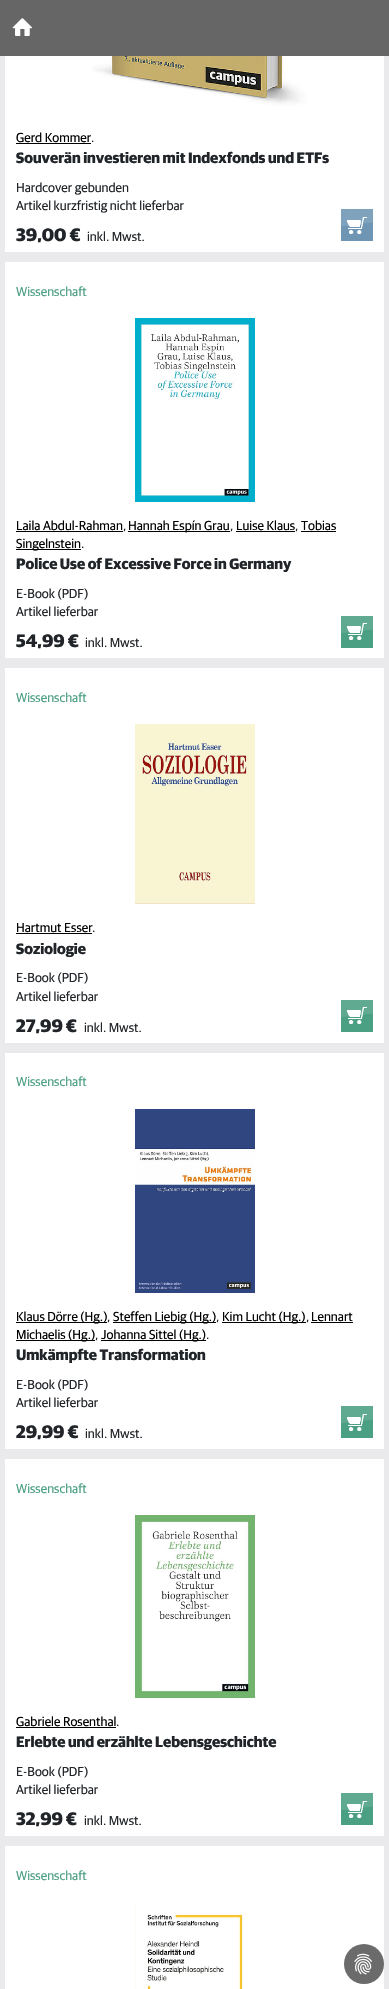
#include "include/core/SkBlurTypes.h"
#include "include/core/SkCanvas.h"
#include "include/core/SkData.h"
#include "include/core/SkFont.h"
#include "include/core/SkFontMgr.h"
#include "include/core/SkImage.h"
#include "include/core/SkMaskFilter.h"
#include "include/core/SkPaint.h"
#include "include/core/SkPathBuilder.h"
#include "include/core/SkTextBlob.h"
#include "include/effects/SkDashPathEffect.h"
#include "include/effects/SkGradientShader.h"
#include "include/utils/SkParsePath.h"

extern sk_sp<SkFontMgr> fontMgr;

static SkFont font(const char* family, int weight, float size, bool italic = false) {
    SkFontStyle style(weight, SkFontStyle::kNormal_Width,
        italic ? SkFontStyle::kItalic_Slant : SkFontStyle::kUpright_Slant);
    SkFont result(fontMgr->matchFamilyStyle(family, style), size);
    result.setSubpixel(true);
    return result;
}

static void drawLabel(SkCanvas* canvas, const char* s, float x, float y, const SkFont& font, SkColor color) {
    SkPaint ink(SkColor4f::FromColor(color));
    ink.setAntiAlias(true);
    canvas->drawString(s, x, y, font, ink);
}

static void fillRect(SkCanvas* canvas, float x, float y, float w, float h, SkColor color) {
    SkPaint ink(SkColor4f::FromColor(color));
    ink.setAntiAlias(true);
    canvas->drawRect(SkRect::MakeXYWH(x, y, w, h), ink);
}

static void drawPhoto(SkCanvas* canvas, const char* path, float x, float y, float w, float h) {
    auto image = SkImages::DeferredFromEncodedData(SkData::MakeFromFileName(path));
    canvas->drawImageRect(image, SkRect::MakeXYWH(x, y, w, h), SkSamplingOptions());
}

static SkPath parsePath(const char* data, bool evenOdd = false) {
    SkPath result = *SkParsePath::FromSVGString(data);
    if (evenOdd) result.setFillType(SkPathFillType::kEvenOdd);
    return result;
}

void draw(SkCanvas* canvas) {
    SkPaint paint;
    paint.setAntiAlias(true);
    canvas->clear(0xFFEAEAEC);
    fillRect(canvas, 0, 0, 389, 56, 0xFF666666);
    drawPhoto(canvas, "assets/img1.png", 12, 18, 21, 18);
    fillRect(canvas, 5, 56, 379, 196, 0xFFFFFFFF);
    drawPhoto(canvas, "assets/img2.png", 92, 56, 215, 50);
    SkFont font1 = font("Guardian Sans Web", 400, 13);
    drawLabel(canvas, "Gerd Kommer", 16, 142, font1, 0xFF000000);
    fillRect(canvas, 16, 143, 75, 1, 0xFF000000);
    drawLabel(canvas, ".", 91, 142, font1, 0xFF212529);
    SkFont font2 = font("Guardian Sans Web", 700, 15);
    drawLabel(canvas, "Souverän investieren mit Indexfonds und ETFs", 16, 163, font2, 0xFF212529);
    drawLabel(canvas, "Hardcover gebunden", 16, 192, font1, 0xFF212529);
    drawLabel(canvas, "Artikel kurzfristig nicht lieferbar", 16, 210, font1, 0xFF212529);
    SkFont font3 = font("Guardian Sans Web", 700, 18);
    drawLabel(canvas, "39,00 €", 16, 241, font3, 0xFF212529);
    drawLabel(canvas, "inkl. Mwst.", 87, 241, font1, 0xFF212529);
    fillRect(canvas, 341, 222, 32, 19, 0xFF6E96B4);
    canvas->save();
    canvas->clipRect(SkRect::MakeXYWH(341, 209, 32, 32));
    {
        const SkColor colors[] = {0xFFB9CCDB, 0xFF739AB7};
        const float stops[] = {0, 1};
        const SkPoint ends[] = {{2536, -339}, {-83, 319}};
        paint.setShader(SkGradientShader::MakeLinear(ends, colors, stops, 2, SkTileMode::kClamp));
        paint.setAlpha(255);
    }
    canvas->drawPath(parsePath("M41-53L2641-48L41 262Z", true), paint);
    canvas->restore();
    drawPhoto(canvas, "assets/img3.png", 347, 217, 20, 17);
    fillRect(canvas, 5, 262, 379, 396, 0xFFFFFFFF);
    drawLabel(canvas, "Wissenschaft", 16, 296, font1, 0xFF4B9F83);
    drawPhoto(canvas, "assets/img4.png", 135, 318, 120, 184);
    drawLabel(canvas, "Laila Abdul-Rahman", 16, 530, font1, 0xFF000000);
    fillRect(canvas, 16, 531, 107, 1, 0xFF000000);
    drawLabel(canvas, ",", 123, 530, font1, 0xFF212529);
    fillRect(canvas, 128, 531, 102, 1, 0xFF000000);
    drawLabel(canvas, "Hannah Espín Grau", 128, 530, font1, 0xFF000000);
    drawLabel(canvas, ",", 230, 530, font1, 0xFF212529);
    drawLabel(canvas, "Luise Klaus", 236, 530, font1, 0xFF000000);
    fillRect(canvas, 236, 531, 59, 1, 0xFF000000);
    drawLabel(canvas, ",", 295, 530, font1, 0xFF212529);
    drawLabel(canvas, "Tobias", 301, 530, font1, 0xFF000000);
    fillRect(canvas, 301, 531, 35, 1, 0xFF000000);
    fillRect(canvas, 16, 549, 65, 1, 0xFF000000);
    drawLabel(canvas, "Singelnstein", 16, 548, font1, 0xFF000000);
    drawLabel(canvas, ".", 81, 548, font1, 0xFF212529);
    drawLabel(canvas, "Police Use of Excessive Force in Germany", 16, 569, font2, 0xFF212529);
    drawLabel(canvas, "E-Book (PDF)", 16, 598, font1, 0xFF212529);
    drawLabel(canvas, "Artikel lieferbar", 16, 616, font1, 0xFF212529);
    drawLabel(canvas, "54,99 €", 16, 647, font3, 0xFF212529);
    drawLabel(canvas, "inkl. Mwst.", 85, 647, font1, 0xFF212529);
    fillRect(canvas, 341, 629, 32, 19, 0xFF4B9F83);
    canvas->save();
    canvas->clipRect(SkRect::MakeXYWH(341, 616, 32, 32));
    {
        const SkColor colors[] = {0xFFA8D0C3, 0xFF51A287};
        const float stops[] = {0, 1};
        const SkPoint ends[] = {{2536, 68}, {-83, 726}};
        paint.setShader(SkGradientShader::MakeLinear(ends, colors, stops, 2, SkTileMode::kClamp));
        paint.setAlpha(255);
    }
    canvas->drawPath(parsePath("M41 354L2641 359L41 669Z", true), paint);
    canvas->restore();
    drawPhoto(canvas, "assets/img5.png", 347, 623, 20, 17);
    fillRect(canvas, 5, 668, 379, 375, 0xFFFFFFFF);
    drawLabel(canvas, "Wissenschaft", 16, 702, font1, 0xFF4B9F83);
    drawPhoto(canvas, "assets/img6.png", 135, 724, 120, 180);
    drawLabel(canvas, "Hartmut Esser", 16, 932, font1, 0xFF000000);
    fillRect(canvas, 16, 933, 76, 1, 0xFF000000);
    drawLabel(canvas, ".", 92, 932, font1, 0xFF212529);
    drawLabel(canvas, "Soziologie", 16, 954, font2, 0xFF212529);
    drawLabel(canvas, "E-Book (PDF)", 16, 982, font1, 0xFF212529);
    drawLabel(canvas, "Artikel lieferbar", 16, 1001, font1, 0xFF212529);
    drawLabel(canvas, "27,99 €", 16, 1032, font3, 0xFF212529);
    drawLabel(canvas, "inkl. Mwst.", 84, 1032, font1, 0xFF212529);
    fillRect(canvas, 341, 1013, 32, 19, 0xFF4B9F83);
    canvas->save();
    canvas->clipRect(SkRect::MakeXYWH(341, 1000, 32, 32));
    {
        const SkColor colors[] = {0xFFA8D0C3, 0xFF51A287};
        const float stops[] = {0, 1};
        const SkPoint ends[] = {{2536, 452}, {-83, 1110}};
        paint.setShader(SkGradientShader::MakeLinear(ends, colors, stops, 2, SkTileMode::kClamp));
        paint.setAlpha(255);
    }
    canvas->drawPath(parsePath("M41 738L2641 743L41 1053Z", true), paint);
    canvas->restore();
    drawPhoto(canvas, "assets/img5.png", 347, 1007, 20, 17);
    fillRect(canvas, 5, 1053, 379, 396, 0xFFFFFFFF);
    drawLabel(canvas, "Wissenschaft", 16, 1086, font1, 0xFF4B9F83);
    drawPhoto(canvas, "assets/img7.png", 135, 1109, 120, 184);
    fillRect(canvas, 16, 1322, 91, 1, 0xFF000000);
    drawLabel(canvas, "Klaus Dörre (Hg.)", 16, 1321, font1, 0xFF000000);
    drawLabel(canvas, ",", 107, 1321, font1, 0xFF212529);
    fillRect(canvas, 113, 1322, 103, 1, 0xFF000000);
    drawLabel(canvas, "Steffen Liebig (Hg.)", 113, 1321, font1, 0xFF000000);
    drawLabel(canvas, ",", 216, 1321, font1, 0xFF212529);
    fillRect(canvas, 222, 1322, 84, 1, 0xFF000000);
    drawLabel(canvas, "Kim Lucht (Hg.)", 222, 1321, font1, 0xFF000000);
    drawLabel(canvas, ",", 306, 1321, font1, 0xFF212529);
    drawLabel(canvas, "Lennart", 311, 1321, font1, 0xFF000000);
    fillRect(canvas, 311, 1322, 42, 1, 0xFF000000);
    fillRect(canvas, 16, 1340, 79, 1, 0xFF000000);
    drawLabel(canvas, "Michaelis (Hg.)", 16, 1339, font1, 0xFF000000);
    drawLabel(canvas, ",", 95, 1339, font1, 0xFF212529);
    fillRect(canvas, 101, 1340, 105, 1, 0xFF000000);
    drawLabel(canvas, "Johanna Sittel (Hg.)", 101, 1339, font1, 0xFF000000);
    drawLabel(canvas, ".", 206, 1339, font1, 0xFF212529);
    drawLabel(canvas, "Umkämpfte Transformation", 16, 1360, font2, 0xFF212529);
    drawLabel(canvas, "E-Book (PDF)", 16, 1389, font1, 0xFF212529);
    drawLabel(canvas, "Artikel lieferbar", 16, 1407, font1, 0xFF212529);
    drawLabel(canvas, "29,99 €", 16, 1438, font3, 0xFF212529);
    drawLabel(canvas, "inkl. Mwst.", 85, 1438, font1, 0xFF212529);
    fillRect(canvas, 341, 1419, 32, 19, 0xFF4B9F83);
    canvas->save();
    canvas->clipRect(SkRect::MakeXYWH(341, 1406, 32, 32));
    {
        const SkColor colors[] = {0xFFA8D0C3, 0xFF51A287};
        const float stops[] = {0, 1};
        const SkPoint ends[] = {{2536, 858}, {-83, 1516}};
        paint.setShader(SkGradientShader::MakeLinear(ends, colors, stops, 2, SkTileMode::kClamp));
        paint.setAlpha(255);
    }
    canvas->drawPath(parsePath("M41 1144L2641 1149L41 1459Z", true), paint);
    canvas->restore();
    drawPhoto(canvas, "assets/img8.png", 347, 1414, 20, 17);
    fillRect(canvas, 5, 1459, 379, 377, 0xFFFFFFFF);
    drawLabel(canvas, "Wissenschaft", 16, 1493, font1, 0xFF4B9F83);
    drawPhoto(canvas, "assets/img9.png", 135, 1515, 120, 183);
    drawLabel(canvas, "Gabriele Rosenthal", 16, 1726, font1, 0xFF000000);
    fillRect(canvas, 16, 1727, 100, 1, 0xFF000000);
    drawLabel(canvas, ".", 116, 1726, font1, 0xFF212529);
    drawLabel(canvas, "Erlebte und erzählte Lebensgeschichte", 16, 1747, font2, 0xFF212529);
    drawLabel(canvas, "E-Book (PDF)", 16, 1776, font1, 0xFF212529);
    drawLabel(canvas, "Artikel lieferbar", 16, 1794, font1, 0xFF212529);
    drawLabel(canvas, "32,99 €", 16, 1825, font3, 0xFF212529);
    drawLabel(canvas, "inkl. Mwst.", 84, 1825, font1, 0xFF212529);
    fillRect(canvas, 341, 1806, 32, 19, 0xFF4B9F83);
    canvas->save();
    canvas->clipRect(SkRect::MakeXYWH(341, 1793, 32, 32));
    {
        const SkColor colors[] = {0xFFA8D0C3, 0xFF51A287};
        const float stops[] = {0, 1};
        const SkPoint ends[] = {{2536, 1245}, {-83, 1903}};
        paint.setShader(SkGradientShader::MakeLinear(ends, colors, stops, 2, SkTileMode::kClamp));
        paint.setAlpha(255);
    }
    canvas->drawPath(parsePath("M41 1531L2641 1536L41 1846Z", true), paint);
    canvas->restore();
    drawPhoto(canvas, "assets/img8.png", 347, 1801, 20, 17);
    fillRect(canvas, 5, 1846, 379, 143, 0xFFFFFFFF);
    drawLabel(canvas, "Wissenschaft", 16, 1880, font1, 0xFF4B9F83);
    drawPhoto(canvas, "assets/img10.png", 135, 1902, 108, 87);
    paint.setShader(nullptr);
    paint.setColor(0xFF6B6B6B);
    canvas->drawCircle(364, 1964, 20, paint);
    drawPhoto(canvas, "assets/img11.png", 354, 1953, 18, 22);
}
